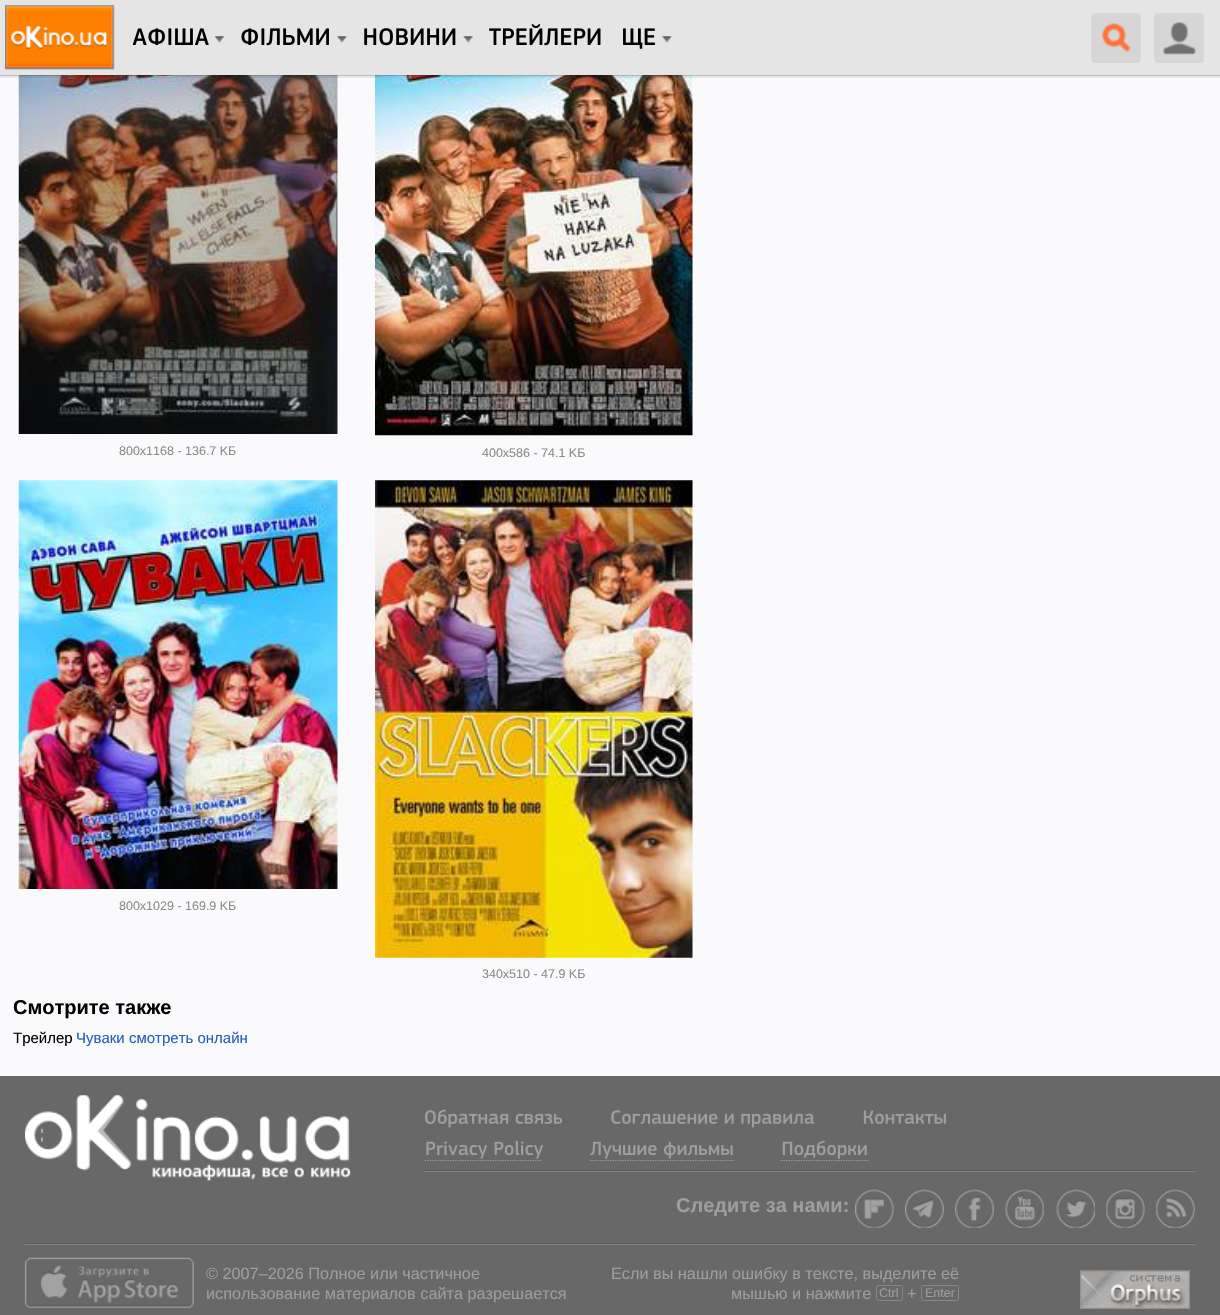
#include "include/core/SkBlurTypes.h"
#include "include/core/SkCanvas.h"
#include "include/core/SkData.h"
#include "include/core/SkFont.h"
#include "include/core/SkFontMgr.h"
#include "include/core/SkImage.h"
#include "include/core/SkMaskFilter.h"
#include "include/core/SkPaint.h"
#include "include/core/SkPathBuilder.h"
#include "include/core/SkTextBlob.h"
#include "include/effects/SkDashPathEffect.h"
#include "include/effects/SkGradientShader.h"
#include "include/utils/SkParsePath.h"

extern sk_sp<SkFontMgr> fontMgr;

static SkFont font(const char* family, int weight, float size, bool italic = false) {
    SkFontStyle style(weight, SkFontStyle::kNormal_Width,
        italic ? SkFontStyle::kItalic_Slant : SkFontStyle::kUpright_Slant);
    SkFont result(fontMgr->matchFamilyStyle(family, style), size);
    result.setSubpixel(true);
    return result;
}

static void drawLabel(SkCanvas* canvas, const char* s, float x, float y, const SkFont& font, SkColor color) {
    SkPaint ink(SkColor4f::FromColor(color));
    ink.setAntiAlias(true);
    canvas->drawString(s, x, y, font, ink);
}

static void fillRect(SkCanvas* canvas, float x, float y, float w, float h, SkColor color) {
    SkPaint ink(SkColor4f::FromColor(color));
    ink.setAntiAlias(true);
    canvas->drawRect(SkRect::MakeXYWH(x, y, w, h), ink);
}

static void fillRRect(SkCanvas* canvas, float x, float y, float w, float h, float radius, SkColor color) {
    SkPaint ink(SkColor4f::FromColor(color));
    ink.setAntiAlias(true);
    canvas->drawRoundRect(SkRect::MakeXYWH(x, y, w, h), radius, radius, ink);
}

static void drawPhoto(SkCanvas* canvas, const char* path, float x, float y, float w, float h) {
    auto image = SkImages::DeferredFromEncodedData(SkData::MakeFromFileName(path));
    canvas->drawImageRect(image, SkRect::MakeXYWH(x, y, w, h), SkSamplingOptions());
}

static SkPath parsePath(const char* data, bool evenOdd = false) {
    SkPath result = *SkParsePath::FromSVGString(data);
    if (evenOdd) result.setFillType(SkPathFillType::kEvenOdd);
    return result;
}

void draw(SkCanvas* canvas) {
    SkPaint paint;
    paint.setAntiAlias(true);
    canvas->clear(0xFFFAFAFC);
    drawPhoto(canvas, "assets/img12.png", 18, 75, 320, 359);
    drawPhoto(canvas, "assets/img13.png", 375, 75, 318, 361);
    fillRect(canvas, 0, 75, 1220, 3, 0x12000000);
    fillRect(canvas, 0, 75, 1220, 1, 0x2E000000);
    fillRect(canvas, 0, 0, 1220, 75, 0xFFE5E5E5);
    drawPhoto(canvas, "assets/img1.png", 5, 5, 110, 65);
    drawPhoto(canvas, "assets/img2.png", 214, 36, 10, 7);
    drawPhoto(canvas, "assets/img3.png", 132, 28, 77, 17);
    drawPhoto(canvas, "assets/img4.png", 337, 36, 10, 7);
    drawPhoto(canvas, "assets/img5.png", 241, 28, 88, 18);
    drawPhoto(canvas, "assets/img6.png", 463, 36, 10, 7);
    drawPhoto(canvas, "assets/img7.png", 364, 28, 92, 18);
    drawPhoto(canvas, "assets/img8.png", 489, 24, 112, 22);
    drawPhoto(canvas, "assets/img4.png", 662, 36, 10, 7);
    drawPhoto(canvas, "assets/img9.png", 623, 28, 32, 21);
    paint.setColor(0xFFD6D6D7);
    canvas->drawRoundRect(SkRect::MakeXYWH(1091.5f, 13.5f, 49, 49), 3.5f, 3.5f, paint);
    paint.setStroke(true);
    paint.setStrokeWidth(1);
    canvas->drawRoundRect(SkRect::MakeXYWH(1091.5f, 13.5f, 49, 49), 3.5f, 3.5f, paint);
    drawPhoto(canvas, "assets/img10.png", 1102, 23, 29, 29);
    fillRRect(canvas, 1154, 13, 50, 50, 4, 0xFFD6D6D7);
    drawPhoto(canvas, "assets/img11.png", 1163, 22, 33, 33);
    SkFont font1 = font("Liberation Sans", 400, 12.5f);
    drawLabel(canvas, "800x1168 - 136.7 KБ", 119, 455, font1, 0xFF8B8B8B);
    drawLabel(canvas, "400x586 - 74.1 KБ", 482, 457, font1, 0xFF8B8B8B);
    drawPhoto(canvas, "assets/img14.png", 18, 480, 320, 409);
    drawLabel(canvas, "800x1029 - 169.9 KБ", 119, 910, font1, 0xFF8B8B8B);
    drawPhoto(canvas, "assets/img15.png", 375, 480, 318, 478);
    drawLabel(canvas, "340x510 - 47.9 KБ", 482, 978, font1, 0xFF8B8B8B);
    SkFont font2 = font("Liberation Sans", 700, 20);
    drawLabel(canvas, "Смотрите также", 13, 1014, font2, 0xFF000000);
    SkFont font3 = font("Liberation Sans", 400, 15);
    drawLabel(canvas, "Трейлер", 13, 1043, font3, 0xFF000000);
    drawLabel(canvas, "Чуваки смотреть онлайн", 76, 1043, font3, 0xFF245DC1);
    fillRect(canvas, 0, 1076, 1220, 239, 0xFF686868);
    drawPhoto(canvas, "assets/img16.png", 25, 1095, 326, 86);
    drawPhoto(canvas, "assets/img17.png", 425, 1109, 138, 19);
    drawPhoto(canvas, "assets/img18.png", 611, 1110, 204, 18);
    drawPhoto(canvas, "assets/img19.png", 863, 1110, 83, 14);
    drawPhoto(canvas, "assets/img20.png", 426, 1140, 117, 19);
    paint.setStrokeWidth(1.2f);
    paint.setColor(0xFFA2A2A2);
    paint.setPathEffect(SkDashPathEffect::Make({{1.25f, 1.25f}}, 0));
    canvas->drawPath(parsePath("M425 1160.5H542.5"), paint);
    paint.setPathEffect(nullptr);
    drawPhoto(canvas, "assets/img21.png", 590, 1141, 143, 18);
    paint.setPathEffect(SkDashPathEffect::Make({{1.25f, 1.25f}}, 0));
    canvas->drawPath(parsePath("M590 1160.5H734"), paint);
    paint.setPathEffect(nullptr);
    drawPhoto(canvas, "assets/img22.png", 782, 1140, 85, 19);
    paint.setPathEffect(SkDashPathEffect::Make({{1.25f, 1.25f}}, 0));
    canvas->drawPath(parsePath("M781 1160.5H869"), paint);
    paint.setPathEffect(nullptr);
    fillRect(canvas, 424, 1170, 771, 1, 0xFF585858);
    fillRect(canvas, 424, 1171, 771, 1, 0xFF888888);
    drawLabel(canvas, "Следите за нами:", 676, 1212, font2, 0xFF9E9E9E);
    drawPhoto(canvas, "assets/img23.png", 855, 1188, 39, 40);
    drawPhoto(canvas, "assets/img24.png", 905, 1188, 39, 40);
    drawPhoto(canvas, "assets/img25.png", 955, 1188, 39, 40);
    drawPhoto(canvas, "assets/img26.png", 1005, 1188, 39, 40);
    drawPhoto(canvas, "assets/img27.png", 1056, 1188, 39, 40);
    drawPhoto(canvas, "assets/img28.png", 1106, 1188, 39, 40);
    drawPhoto(canvas, "assets/img29.png", 1156, 1188, 39, 40);
    fillRect(canvas, 25, 1243, 1170, 1, 0xFF585858);
    fillRect(canvas, 25, 1244, 1170, 1, 0xFF888888);
    drawPhoto(canvas, "assets/img30.png", 25, 1257, 169, 51);
    SkFont font4 = font("Liberation Sans", 400, 16.25f);
    drawLabel(canvas, "© 2007–2026 Полное или частичное", 206, 1279, font4, 0xFF9E9E9E);
    drawLabel(canvas, "использование материалов сайта разрешается", 206, 1299, font4, 0xFF9E9E9E);
    drawLabel(canvas, "Если вы нашли ошибку в тексте, выделите её", 611, 1279, font4, 0xFF9E9E9E);
    drawLabel(canvas, "мышью и нажмите", 731, 1299, font4, 0xFF9E9E9E);
    paint.setStrokeWidth(1);
    paint.setColor(0xFF888888);
    canvas->drawRoundRect(SkRect::MakeXYWH(876.5f, 1285.5f, 26, 15), 2, 2, paint);
    drawLabel(canvas, "Ctrl", 879, 1297, font1, 0xFF9E9E9E);
    drawLabel(canvas, "+", 907, 1299, font4, 0xFF9E9E9E);
    canvas->drawRoundRect(SkRect::MakeXYWH(921.5f, 1285.5f, 37, 15), 2, 2, paint);
    drawLabel(canvas, "Enter", 925, 1297, font1, 0xFF9E9E9E);
    drawPhoto(canvas, "assets/img31.png", 1080, 1270, 110, 39);
}
